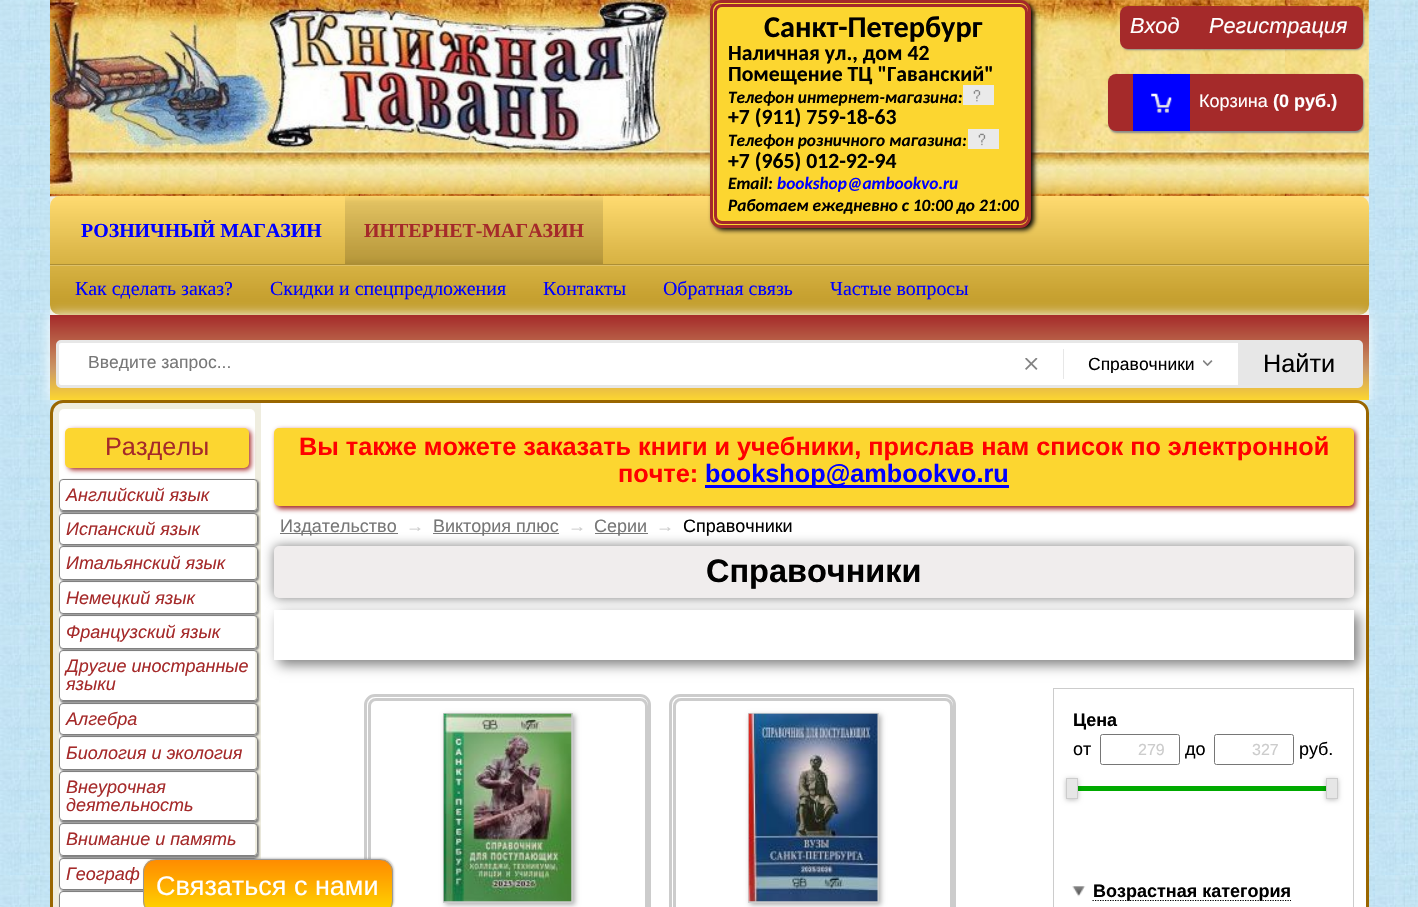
#include "include/core/SkBlurTypes.h"
#include "include/core/SkCanvas.h"
#include "include/core/SkData.h"
#include "include/core/SkFont.h"
#include "include/core/SkFontMgr.h"
#include "include/core/SkImage.h"
#include "include/core/SkMaskFilter.h"
#include "include/core/SkPaint.h"
#include "include/core/SkPathBuilder.h"
#include "include/core/SkTextBlob.h"
#include "include/effects/SkDashPathEffect.h"
#include "include/effects/SkGradientShader.h"
#include "include/utils/SkParsePath.h"

extern sk_sp<SkFontMgr> fontMgr;

static SkFont font(const char* family, int weight, float size, bool italic = false) {
    SkFontStyle style(weight, SkFontStyle::kNormal_Width,
        italic ? SkFontStyle::kItalic_Slant : SkFontStyle::kUpright_Slant);
    SkFont result(fontMgr->matchFamilyStyle(family, style), size);
    result.setSubpixel(true);
    return result;
}

static void drawLabel(SkCanvas* canvas, const char* s, float x, float y, const SkFont& font, SkColor color) {
    SkPaint ink(SkColor4f::FromColor(color));
    ink.setAntiAlias(true);
    canvas->drawString(s, x, y, font, ink);
}

static void fillRect(SkCanvas* canvas, float x, float y, float w, float h, SkColor color) {
    SkPaint ink(SkColor4f::FromColor(color));
    ink.setAntiAlias(true);
    canvas->drawRect(SkRect::MakeXYWH(x, y, w, h), ink);
}

static void fillRRect(SkCanvas* canvas, float x, float y, float w, float h, float radius, SkColor color) {
    SkPaint ink(SkColor4f::FromColor(color));
    ink.setAntiAlias(true);
    canvas->drawRoundRect(SkRect::MakeXYWH(x, y, w, h), radius, radius, ink);
}

static void drawPhoto(SkCanvas* canvas, const char* path, float x, float y, float w, float h) {
    auto image = SkImages::DeferredFromEncodedData(SkData::MakeFromFileName(path));
    canvas->drawImageRect(image, SkRect::MakeXYWH(x, y, w, h), SkSamplingOptions());
}

static SkPath parsePath(const char* data, bool evenOdd = false) {
    SkPath result = *SkParsePath::FromSVGString(data);
    if (evenOdd) result.setFillType(SkPathFillType::kEvenOdd);
    return result;
}

void draw(SkCanvas* canvas) {
    SkPaint paint;
    paint.setAntiAlias(true);
    canvas->clear(0xFFFFFFFF);
    drawPhoto(canvas, "assets/img1.png", 0, 0, 1418, 907);
    fillRRect(canvas, 50, 0, 1319, 400, 13, 0xFFEFEDDF);
    drawPhoto(canvas, "assets/img2.png", 50, 0, 1319, 197);
    drawPhoto(canvas, "assets/img3.png", 50, 0, 619, 194);
    fillRRect(canvas, 50, 196, 1319, 119, 10, 0xFFFFCC33);
    {
        const SkColor colors[] = {0x4DFFFFFF, 0x40000000};
        const float stops[] = {0, 1};
        const SkPoint ends[] = {{50, 196}, {50, 315}};
        paint.setShader(SkGradientShader::MakeLinear(ends, colors, stops, 2, SkTileMode::kClamp));
        paint.setAlpha(255);
    }
    canvas->drawRoundRect(SkRect::MakeXYWH(50, 196, 1319, 119), 10, 10, paint);
    paint.setShader(nullptr);
    paint.setColor(0xFF000000);
    paint.setMaskFilter(SkMaskFilter::MakeBlur(kNormal_SkBlurStyle, 2.5f));
    canvas->drawRoundRect(SkRect::MakeXYWH(713, 3, 321, 227), 11, 11, paint);
    paint.setMaskFilter(nullptr);
    paint.setColor(0xFFFCD630);
    canvas->drawRoundRect(SkRect::MakeXYWH(711.5f, 1.5f, 318, 225), 9.5f, 9.5f, paint);
    paint.setStroke(true);
    paint.setStrokeWidth(3);
    paint.setColor(0xFFA52A2A);
    canvas->drawRoundRect(SkRect::MakeXYWH(711.5f, 1.5f, 318, 225), 9.5f, 9.5f, paint);
    canvas->drawRoundRect(SkRect::MakeXYWH(715.5f, 5.5f, 311, 217), 6.5f, 6.5f, paint);
    SkFont font1 = font("Carlito", 700, 30.25f);
    drawLabel(canvas, "Санкт-Петербург", 764, 37, font1, 0xFF000000);
    SkFont font2 = font("Carlito", 700, 21.7f);
    drawLabel(canvas, "Наличная ул., дом 42", 728, 60, font2, 0xFF000000);
    drawLabel(canvas, "Помещение ТЦ \"Гаванский\"", 728, 81, font2, 0xFF000000);
    SkFont font3 = font("Carlito", 700, 17.3f, true);
    drawLabel(canvas, "Телефон интернет-магазина:", 728, 103, font3, 0xFF000000);
    fillRect(canvas, 963, 85, 31, 20, 0xFFEAEAEA);
    drawPhoto(canvas, "assets/img4.png", 973, 89, 8, 13);
    drawLabel(canvas, "+7 (911) 759-18-63", 728, 124, font2, 0xFF000000);
    drawLabel(canvas, "Телефон розничного магазина:", 728, 146, font3, 0xFF000000);
    fillRect(canvas, 968, 129, 31, 20, 0xFFEAEAEA);
    drawPhoto(canvas, "assets/img5.png", 978, 133, 8, 13);
    drawLabel(canvas, "+7 (965) 012-92-94", 728, 168, font2, 0xFF000000);
    drawLabel(canvas, "Email:", 728, 189, font3, 0xFF000000);
    drawLabel(canvas, "bookshop@ambookvo.ru", 777, 189, font3, 0xFF0000FF);
    drawLabel(canvas, "Работаем ежедневно с 10:00 до 21:00", 728, 211, font3, 0xFF000000);
    paint.setStroke(false);
    paint.setColor(0xFF888888);
    paint.setMaskFilter(SkMaskFilter::MakeBlur(kNormal_SkBlurStyle, 1));
    canvas->drawRoundRect(SkRect::MakeXYWH(1121, 8, 243, 42), 8, 8, paint);
    paint.setMaskFilter(nullptr);
    fillRRect(canvas, 1120, 6, 243, 43, 8, 0xFFA52A2A);
    SkFont font4 = font("Liberation Sans", 400, 21.7f, true);
    drawLabel(canvas, "Вход", 1130, 33, font4, 0xFFFFFFFF);
    drawLabel(canvas, "Регистрация", 1209, 33, font4, 0xFFFFFFFF);
    paint.setMaskFilter(SkMaskFilter::MakeBlur(kNormal_SkBlurStyle, 1));
    canvas->drawRoundRect(SkRect::MakeXYWH(1109, 75, 255, 58), 8, 8, paint);
    paint.setMaskFilter(nullptr);
    fillRRect(canvas, 1108, 74, 255, 57, 8, 0xFFA52A2A);
    fillRect(canvas, 1133, 74, 57, 57, 0xFF0000FF);
    drawPhoto(canvas, "assets/img6.png", 1151, 93, 21, 20);
    SkFont font5 = font("Liberation Sans", 400, 18);
    drawLabel(canvas, "Корзина", 1199, 107, font5, 0xFFFFFFFF);
    SkFont font6 = font("Liberation Sans", 700, 18);
    drawLabel(canvas, "(0 руб.)", 1273, 107, font6, 0xFFFFFFFF);
    fillRect(canvas, 50, 264, 1319, 1, 0xFFAC8E35);
    SkFont font7 = font("Liberation Serif", 700, 19.9f);
    drawLabel(canvas, "РОЗНИЧНЫЙ МАГАЗИН", 81, 237, font7, 0xFF0000FF);
    {
        const SkColor colors[] = {0x08000000, 0x1A000000, 0x26000000, 0x33000000};
        const float stops[] = {0, 0.1f, 0.9f, 1};
        const SkPoint ends[] = {{345, 196}, {345, 264}};
        paint.setShader(SkGradientShader::MakeLinear(ends, colors, stops, 4, SkTileMode::kClamp));
        paint.setAlpha(255);
    }
    canvas->drawRect(SkRect::MakeXYWH(345, 196, 258, 68), paint);
    drawLabel(canvas, "ИНТЕРНЕТ-МАГАЗИН", 364, 237, font7, 0xFFA52A2A);
    fillRect(canvas, 50, 265, 1319, 1, 0xFFDFC168);
    paint.setShader(nullptr);
    paint.setColor(0xFFFFFFFF);
    paint.setMaskFilter(SkMaskFilter::MakeBlur(kNormal_SkBlurStyle, 6));
    canvas->drawRect(SkRect::MakeXYWH(50, 315, 1319, 85), paint);
    paint.setMaskFilter(nullptr);
    SkFont font8 = font("Liberation Serif", 400, 19.9f);
    drawLabel(canvas, "Как сделать заказ?", 75, 295, font8, 0xFF0000FF);
    drawLabel(canvas, "Скидки и спецпредложения", 270, 295, font8, 0xFF0000FF);
    drawLabel(canvas, "Контакты", 543, 295, font8, 0xFF0000FF);
    drawLabel(canvas, "Обратная связь", 663, 295, font8, 0xFF0000FF);
    drawLabel(canvas, "Частые вопросы", 830, 295, font8, 0xFF0000FF);
    {
        const SkColor colors[] = {0xFFFCD630, 0xFFCC9966, 0xFFA52A2A};
        const float stops[] = {0, 0.36f, 1};
        const SkPoint ends[] = {{709, 400}, {709, 315}};
        paint.setShader(SkGradientShader::MakeLinear(ends, colors, stops, 3, SkTileMode::kClamp));
        paint.setAlpha(255);
    }
    canvas->drawRect(SkRect::MakeXYWH(50, 315, 1319, 85), paint);
    paint.setShader(nullptr);
    paint.setColor(0xFFFFFFFF);
    canvas->drawRoundRect(SkRect::MakeXYWH(57.5f, 341.5f, 1304, 45), 3.5f, 3.5f, paint);
    paint.setStroke(true);
    paint.setColor(0xFFE7E7E7);
    canvas->drawRoundRect(SkRect::MakeXYWH(57.5f, 341.5f, 1304, 45), 3.5f, 3.5f, paint);
    canvas->save();
    canvas->clipRect(SkRect::MakeXYWH(88, 351, 912, 20));
    SkFont font9 = font("Liberation Sans", 400, 17.5f);
    drawLabel(canvas, "Введите запрос...", 88, 368, font9, 0xFF777777);
    canvas->restore();
    drawPhoto(canvas, "assets/img7.png", 1025, 358, 13, 12);
    fillRect(canvas, 1063, 349, 1, 30, 0xFFE7E7E7);
    canvas->save();
    canvas->clipRect(SkRect::MakeXYWH(1088, 355, 106, 18));
    drawLabel(canvas, "Справочники", 1088, 370, font9, 0xFF000000);
    canvas->restore();
    drawPhoto(canvas, "assets/img8.png", 1203, 360, 10, 6);
    fillRect(canvas, 1238, 343, 122, 42, 0xFFE7E7E7);
    SkFont font10 = font("Liberation Sans", 400, 25.25f);
    drawLabel(canvas, "Найти", 1263, 372, font10, 0xFF000000);
    paint.setStroke(false);
    paint.setColor(0xFFEFEDDF);
    canvas->drawRoundRect(SkRect::MakeXYWH(51.5f, 401.5f, 1316, 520), 11.5f, 11.5f, paint);
    paint.setStroke(true);
    paint.setColor(0xFF996600);
    canvas->drawRoundRect(SkRect::MakeXYWH(51.5f, 401.5f, 1316, 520), 11.5f, 11.5f, paint);
    fillRRect(canvas, 59, 409, 196, 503, 5, 0xFFFFFFFF);
    paint.setStroke(false);
    paint.setColor(0xFFA52A2A);
    paint.setMaskFilter(SkMaskFilter::MakeBlur(kNormal_SkBlurStyle, 2.5f));
    canvas->drawRoundRect(SkRect::MakeXYWH(68, 430, 183, 40), 5, 5, paint);
    paint.setMaskFilter(nullptr);
    fillRRect(canvas, 65, 428, 184, 40, 5, 0xFFFCD630);
    drawLabel(canvas, "Разделы", 105, 455, font10, 0xFFA52A2A);
    paint.setColor(0xFFFFFFFF);
    canvas->drawPath(parsePath("M261 403H1356C1361.5 403 1366 407.5 1366 413V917H261Z"), paint);
    canvas->save();
    canvas->clipPath(parsePath("M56 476H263V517H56ZM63 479H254C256 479 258 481 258 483V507C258 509 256 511 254 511H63C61 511 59 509 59 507V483C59 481 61 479 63 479Z", true), true);
    paint.setColor(0xFF808080);
    paint.setMaskFilter(SkMaskFilter::MakeBlur(kNormal_SkBlurStyle, 1));
    canvas->drawRoundRect(SkRect::MakeXYWH(60, 480, 199, 33), 4, 4, paint);
    paint.setMaskFilter(nullptr);
    canvas->restore();
    paint.setStroke(true);
    paint.setStrokeWidth(1);
    canvas->drawRoundRect(SkRect::MakeXYWH(59.5f, 479.5f, 198, 31), 3.5f, 3.5f, paint);
    SkFont font11 = font("Liberation Sans", 400, 18, true);
    drawLabel(canvas, "Английский язык", 66, 501, font11, 0xFFA52A2A);
    canvas->save();
    canvas->clipPath(parsePath("M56 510H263V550H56ZM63 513H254C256 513 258 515 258 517V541C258 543 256 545 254 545H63C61 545 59 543 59 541V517C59 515 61 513 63 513Z", true), true);
    paint.setStroke(false);
    paint.setMaskFilter(SkMaskFilter::MakeBlur(kNormal_SkBlurStyle, 1));
    canvas->drawRoundRect(SkRect::MakeXYWH(60, 514, 199, 32), 4, 4, paint);
    paint.setMaskFilter(nullptr);
    canvas->restore();
    paint.setMaskFilter(SkMaskFilter::MakeBlur(kNormal_SkBlurStyle, 6));
    canvas->drawRoundRect(SkRect::MakeXYWH(274, 546, 1080, 52), 5, 5, paint);
    paint.setMaskFilter(nullptr);
    paint.setStroke(true);
    canvas->drawRoundRect(SkRect::MakeXYWH(59.5f, 513.5f, 198, 31), 3.5f, 3.5f, paint);
    drawLabel(canvas, "Испанский язык", 66, 535, font11, 0xFFA52A2A);
    canvas->save();
    canvas->clipPath(parsePath("M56 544H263V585H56ZM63 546H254C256 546 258 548 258 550V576C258 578 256 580 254 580H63C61 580 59 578 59 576V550C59 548 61 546 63 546Z", true), true);
    paint.setStroke(false);
    paint.setMaskFilter(SkMaskFilter::MakeBlur(kNormal_SkBlurStyle, 1));
    canvas->drawRoundRect(SkRect::MakeXYWH(60, 548, 199, 33), 4, 4, paint);
    paint.setMaskFilter(nullptr);
    canvas->restore();
    paint.setStroke(true);
    canvas->drawRoundRect(SkRect::MakeXYWH(59.5f, 546.5f, 198, 33), 3.5f, 3.5f, paint);
    drawLabel(canvas, "Итальянский язык", 66, 569, font11, 0xFFA52A2A);
    canvas->save();
    canvas->clipPath(parsePath("M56 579H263V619H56ZM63 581H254C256 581 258 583 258 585V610C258 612 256 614 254 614H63C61 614 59 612 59 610V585C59 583 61 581 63 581Z", true), true);
    paint.setStroke(false);
    paint.setMaskFilter(SkMaskFilter::MakeBlur(kNormal_SkBlurStyle, 1));
    canvas->drawRoundRect(SkRect::MakeXYWH(60, 583, 199, 32), 4, 4, paint);
    paint.setMaskFilter(nullptr);
    canvas->restore();
    paint.setStroke(true);
    canvas->drawRoundRect(SkRect::MakeXYWH(59.5f, 581.5f, 198, 32), 3.5f, 3.5f, paint);
    drawLabel(canvas, "Немецкий язык", 66, 604, font11, 0xFFA52A2A);
    canvas->save();
    canvas->clipPath(parsePath("M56 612H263V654H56ZM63 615H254C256 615 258 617 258 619V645C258 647 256 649 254 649H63C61 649 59 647 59 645V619C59 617 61 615 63 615Z", true), true);
    paint.setStroke(false);
    paint.setMaskFilter(SkMaskFilter::MakeBlur(kNormal_SkBlurStyle, 1));
    canvas->drawRoundRect(SkRect::MakeXYWH(60, 616, 199, 34), 4, 4, paint);
    paint.setMaskFilter(nullptr);
    canvas->restore();
    paint.setStroke(true);
    canvas->drawRoundRect(SkRect::MakeXYWH(59.5f, 615.5f, 198, 33), 3.5f, 3.5f, paint);
    drawLabel(canvas, "Французский язык", 66, 638, font11, 0xFFA52A2A);
    canvas->save();
    canvas->clipPath(parsePath("M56 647H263V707H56ZM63 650H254C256 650 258 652 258 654V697C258 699 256 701 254 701H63C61 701 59 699 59 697V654C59 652 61 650 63 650Z", true), true);
    paint.setStroke(false);
    paint.setMaskFilter(SkMaskFilter::MakeBlur(kNormal_SkBlurStyle, 1));
    canvas->drawRoundRect(SkRect::MakeXYWH(60, 651, 199, 52), 4, 4, paint);
    paint.setMaskFilter(nullptr);
    canvas->restore();
    paint.setStroke(true);
    canvas->drawRoundRect(SkRect::MakeXYWH(59.5f, 650.5f, 198, 50), 3.5f, 3.5f, paint);
    drawLabel(canvas, "Другие иностранные", 66, 672, font11, 0xFFA52A2A);
    drawLabel(canvas, "языки", 66, 690, font11, 0xFFA52A2A);
    canvas->save();
    canvas->clipPath(parsePath("M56 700H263V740H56ZM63 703H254C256 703 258 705 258 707V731C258 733 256 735 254 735H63C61 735 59 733 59 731V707C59 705 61 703 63 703Z", true), true);
    paint.setStroke(false);
    paint.setMaskFilter(SkMaskFilter::MakeBlur(kNormal_SkBlurStyle, 1));
    canvas->drawRoundRect(SkRect::MakeXYWH(60, 704, 199, 32), 4, 4, paint);
    paint.setMaskFilter(nullptr);
    canvas->restore();
    paint.setStroke(true);
    canvas->drawRoundRect(SkRect::MakeXYWH(59.5f, 703.5f, 198, 31), 3.5f, 3.5f, paint);
    drawLabel(canvas, "Алгебра", 66, 725, font11, 0xFFA52A2A);
    canvas->save();
    canvas->clipPath(parsePath("M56 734H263V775H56ZM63 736H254C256 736 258 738 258 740V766C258 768 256 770 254 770H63C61 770 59 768 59 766V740C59 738 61 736 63 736Z", true), true);
    paint.setStroke(false);
    paint.setMaskFilter(SkMaskFilter::MakeBlur(kNormal_SkBlurStyle, 1));
    canvas->drawRoundRect(SkRect::MakeXYWH(60, 738, 199, 33), 4, 4, paint);
    paint.setMaskFilter(nullptr);
    canvas->restore();
    paint.setStroke(true);
    canvas->drawRoundRect(SkRect::MakeXYWH(59.5f, 736.5f, 198, 33), 3.5f, 3.5f, paint);
    drawLabel(canvas, "Биология и экология", 66, 759, font11, 0xFFA52A2A);
    canvas->save();
    canvas->clipPath(parsePath("M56 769H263V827H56ZM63 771H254C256 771 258 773 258 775V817C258 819 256 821 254 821H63C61 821 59 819 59 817V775C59 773 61 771 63 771Z", true), true);
    paint.setStroke(false);
    paint.setMaskFilter(SkMaskFilter::MakeBlur(kNormal_SkBlurStyle, 1));
    canvas->drawRoundRect(SkRect::MakeXYWH(60, 773, 199, 50), 4, 4, paint);
    paint.setMaskFilter(nullptr);
    canvas->restore();
    paint.setStroke(true);
    canvas->drawRoundRect(SkRect::MakeXYWH(59.5f, 771.5f, 198, 49), 3.5f, 3.5f, paint);
    drawLabel(canvas, "Внеурочная", 66, 793, font11, 0xFFA52A2A);
    drawLabel(canvas, "деятельность", 66, 811, font11, 0xFFA52A2A);
    canvas->save();
    canvas->clipPath(parsePath("M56 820H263V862H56ZM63 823H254C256 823 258 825 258 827V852C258 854 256 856 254 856H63C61 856 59 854 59 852V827C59 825 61 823 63 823Z", true), true);
    paint.setStroke(false);
    paint.setMaskFilter(SkMaskFilter::MakeBlur(kNormal_SkBlurStyle, 1));
    canvas->drawRoundRect(SkRect::MakeXYWH(60, 824, 199, 34), 4, 4, paint);
    paint.setMaskFilter(nullptr);
    canvas->restore();
    paint.setStroke(true);
    canvas->drawRoundRect(SkRect::MakeXYWH(59.5f, 823.5f, 198, 32), 3.5f, 3.5f, paint);
    drawLabel(canvas, "Внимание и память", 66, 845, font11, 0xFFA52A2A);
    canvas->save();
    canvas->clipPath(parsePath("M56 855H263V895H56ZM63 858H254C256 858 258 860 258 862V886C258 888 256 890 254 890H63C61 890 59 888 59 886V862C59 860 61 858 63 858Z", true), true);
    paint.setStroke(false);
    paint.setMaskFilter(SkMaskFilter::MakeBlur(kNormal_SkBlurStyle, 1));
    canvas->drawRoundRect(SkRect::MakeXYWH(60, 859, 199, 32), 4, 4, paint);
    paint.setMaskFilter(nullptr);
    canvas->restore();
    paint.setStroke(true);
    canvas->drawRoundRect(SkRect::MakeXYWH(59.5f, 858.5f, 198, 31), 3.5f, 3.5f, paint);
    drawLabel(canvas, "Географ", 66, 880, font11, 0xFFA52A2A);
    canvas->save();
    canvas->clipRect(SkRect::MakeXYWH(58, 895, 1, 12));
    paint.setStroke(false);
    paint.setMaskFilter(SkMaskFilter::MakeBlur(kNormal_SkBlurStyle, 1));
    canvas->drawRoundRect(SkRect::MakeXYWH(60, 893, 199, 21), 4, 4, paint);
    paint.setMaskFilter(nullptr);
    canvas->restore();
    paint.setStroke(true);
    canvas->drawRoundRect(SkRect::MakeXYWH(59.5f, 891.5f, 198, 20), 3.5f, 3.5f, paint);
    paint.setStroke(false);
    paint.setColor(0xFFA52A2A);
    paint.setMaskFilter(SkMaskFilter::MakeBlur(kNormal_SkBlurStyle, 2.5f));
    canvas->drawRoundRect(SkRect::MakeXYWH(276, 430, 1080, 79), 5, 5, paint);
    paint.setMaskFilter(nullptr);
    fillRRect(canvas, 274, 428, 1080, 78, 5, 0xFFFCD630);
    SkFont font12 = font("Liberation Sans", 700, 25.25f);
    drawLabel(canvas, "Вы также можете заказать книги и учебники, прислав нам список по электронной", 299, 455, font12, 0xFFFF0000);
    drawLabel(canvas, "почте:", 618, 482, font12, 0xFFFF0000);
    fillRect(canvas, 705, 485, 304, 3, 0xFF0000FF);
    drawLabel(canvas, "bookshop@ambookvo.ru", 705, 482, font12, 0xFF0000FF);
    fillRect(canvas, 280, 533, 118, 1, 0xFF777777);
    drawLabel(canvas, "Издательство", 280, 532, font5, 0xFF777777);
    drawLabel(canvas, "→", 406, 532, font5, 0xFFCCCCCC);
    fillRect(canvas, 433, 533, 126, 1, 0xFF777777);
    drawLabel(canvas, "Виктория плюс", 433, 532, font5, 0xFF777777);
    drawLabel(canvas, "→", 568, 532, font5, 0xFFCCCCCC);
    fillRect(canvas, 595, 533, 53, 1, 0xFF777777);
    drawLabel(canvas, "Серии", 594, 532, font5, 0xFF777777);
    drawLabel(canvas, "→", 656, 532, font5, 0xFFCCCCCC);
    drawLabel(canvas, "Справочники", 683, 532, font5, 0xFF000000);
    fillRRect(canvas, 274, 546, 1080, 52, 5, 0xFFF0EDED);
    SkFont font13 = font("Liberation Sans", 700, 32.5f);
    drawLabel(canvas, "Справочники", 706, 582, font13, 0xFF000000);
    canvas->save();
    canvas->clipRect(SkRect::MakeXYWH(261, 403, 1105, 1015));
    paint.setColor(0xFF808080);
    paint.setMaskFilter(SkMaskFilter::MakeBlur(kNormal_SkBlurStyle, 6));
    canvas->drawRect(SkRect::MakeXYWH(279, 615, 1080, 50), paint);
    paint.setMaskFilter(nullptr);
    canvas->restore();
    fillRect(canvas, 274, 610, 1080, 50, 0xFFFFFFFF);
    paint.setStroke(true);
    paint.setStrokeWidth(3);
    paint.setColor(0xFFCCCCCC);
    canvas->drawRoundRect(SkRect::MakeXYWH(365.5f, 695.5f, 284, 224), 9.5f, 9.5f, paint);
    canvas->drawRoundRect(SkRect::MakeXYWH(369.5f, 699.5f, 277, 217), 6.5f, 6.5f, paint);
    paint.setStroke(false);
    paint.setColor(0x4D000000);
    paint.setMaskFilter(SkMaskFilter::MakeBlur(kNormal_SkBlurStyle, 2.5f));
    canvas->drawRect(SkRect::MakeXYWH(445, 715, 130, 190), paint);
    paint.setMaskFilter(nullptr);
    fillRect(canvas, 443, 713, 130, 190, 0xFFCCCCCC);
    drawPhoto(canvas, "assets/img9.png", 443, 713, 129, 189);
    paint.setStroke(true);
    paint.setColor(0xFFCCCCCC);
    canvas->drawRoundRect(SkRect::MakeXYWH(670.5f, 695.5f, 284, 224), 9.5f, 9.5f, paint);
    canvas->drawRoundRect(SkRect::MakeXYWH(674.5f, 699.5f, 277, 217), 6.5f, 6.5f, paint);
    paint.setStroke(false);
    paint.setColor(0x4D000000);
    paint.setMaskFilter(SkMaskFilter::MakeBlur(kNormal_SkBlurStyle, 2.5f));
    canvas->drawRect(SkRect::MakeXYWH(750, 715, 131, 190), paint);
    paint.setMaskFilter(nullptr);
    fillRect(canvas, 748, 713, 131, 190, 0xFFCCCCCC);
    drawPhoto(canvas, "assets/img10.png", 748, 713, 130, 189);
    paint.setStroke(true);
    paint.setStrokeWidth(1);
    paint.setColor(0xFFCCCCCC);
    canvas->drawRect(SkRect::MakeXYWH(1053.5f, 688.5f, 300, 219), paint);
    drawLabel(canvas, "Цена", 1073, 726, font6, 0xFF000000);
    drawLabel(canvas, "от", 1073, 755, font5, 0xFF000000);
    paint.setColor(0xFF767676);
    canvas->drawRoundRect(SkRect::MakeXYWH(1100.5f, 734.5f, 79, 30), 2, 2, paint);
    SkFont font14 = font("Liberation Sans", 400, 16);
    drawLabel(canvas, "279", 1138, 755, font14, 0xFFCCCCCC);
    drawLabel(canvas, "до", 1185, 755, font5, 0xFF000000);
    canvas->drawRoundRect(SkRect::MakeXYWH(1214.5f, 734.5f, 79, 30), 2, 2, paint);
    drawLabel(canvas, "327", 1252, 755, font14, 0xFFCCCCCC);
    drawLabel(canvas, "руб.", 1299, 755, font5, 0xFF000000);
    fillRect(canvas, 1073, 786, 261, 5, 0xFF00AA00);
    paint.setStroke(false);
    paint.setColor(0x40000000);
    paint.setMaskFilter(SkMaskFilter::MakeBlur(kNormal_SkBlurStyle, 2.5f));
    canvas->drawRect(SkRect::MakeXYWH(1066, 779, 12, 21), paint);
    paint.setMaskFilter(nullptr);
    paint.setColor(0xFFE6E6E6);
    canvas->drawRect(SkRect::MakeXYWH(1066.5f, 778.5f, 11, 20), paint);
    paint.setStroke(true);
    paint.setColor(0xFFCCCCCC);
    canvas->drawRect(SkRect::MakeXYWH(1066.5f, 778.5f, 11, 20), paint);
    paint.setStroke(false);
    paint.setColor(0x40000000);
    paint.setMaskFilter(SkMaskFilter::MakeBlur(kNormal_SkBlurStyle, 2.5f));
    canvas->drawRect(SkRect::MakeXYWH(1326, 779, 12, 21), paint);
    paint.setMaskFilter(nullptr);
    paint.setColor(0xFFE6E6E6);
    canvas->drawRect(SkRect::MakeXYWH(1326.5f, 778.5f, 11, 20), paint);
    paint.setStroke(true);
    paint.setColor(0xFFCCCCCC);
    canvas->drawRect(SkRect::MakeXYWH(1326.5f, 778.5f, 11, 20), paint);
    drawPhoto(canvas, "assets/img11.png", 1072, 886, 14, 11);
    paint.setStrokeWidth(1.2f);
    paint.setColor(0xFF000000);
    paint.setPathEffect(SkDashPathEffect::Make({{1.25f, 1.25f}}, 0));
    canvas->drawPath(parsePath("M1092.5 900.5H1291"), paint);
    paint.setPathEffect(nullptr);
    drawLabel(canvas, "Возрастная категория", 1093, 897, font6, 0xFF000000);
    paint.setStroke(false);
    paint.setColor(0x66797979);
    paint.setMaskFilter(SkMaskFilter::MakeBlur(kNormal_SkBlurStyle, 1));
    canvas->drawRoundRect(SkRect::MakeXYWH(144, 858, 250, 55), 13, 13, paint);
    paint.setMaskFilter(nullptr);
    canvas->save();
    canvas->clipPath(parsePath("M156 859H380C387 859 393 865 393 872V901C393 908 387 914 380 914H156C149 914 143 908 143 901V872C143 865 149 859 156 859Z"), true);
    {
        const SkColor colors[] = {0xFFFF8C00, 0xFFFFA500, 0xFFFFD700};
        const float stops[] = {0, 0.36f, 1};
        const SkPoint ends[] = {{268, 860}, {268, 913}};
        paint.setShader(SkGradientShader::MakeLinear(ends, colors, stops, 3, SkTileMode::kClamp));
        paint.setAlpha(255);
    }
    canvas->drawRect(SkRect::MakeXYWH(143, 860, 250, 47), paint);
    canvas->restore();
    paint.setStroke(true);
    paint.setStrokeWidth(1);
    paint.setShader(nullptr);
    paint.setColor(0xFF999999);
    canvas->drawRoundRect(SkRect::MakeXYWH(143.5f, 859.5f, 249, 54), 12.5f, 12.5f, paint);
    SkFont font15 = font("Liberation Sans", 400, 27);
    drawLabel(canvas, "Связаться с нами", 156, 895, font15, 0xFFFFFFFF);
}
